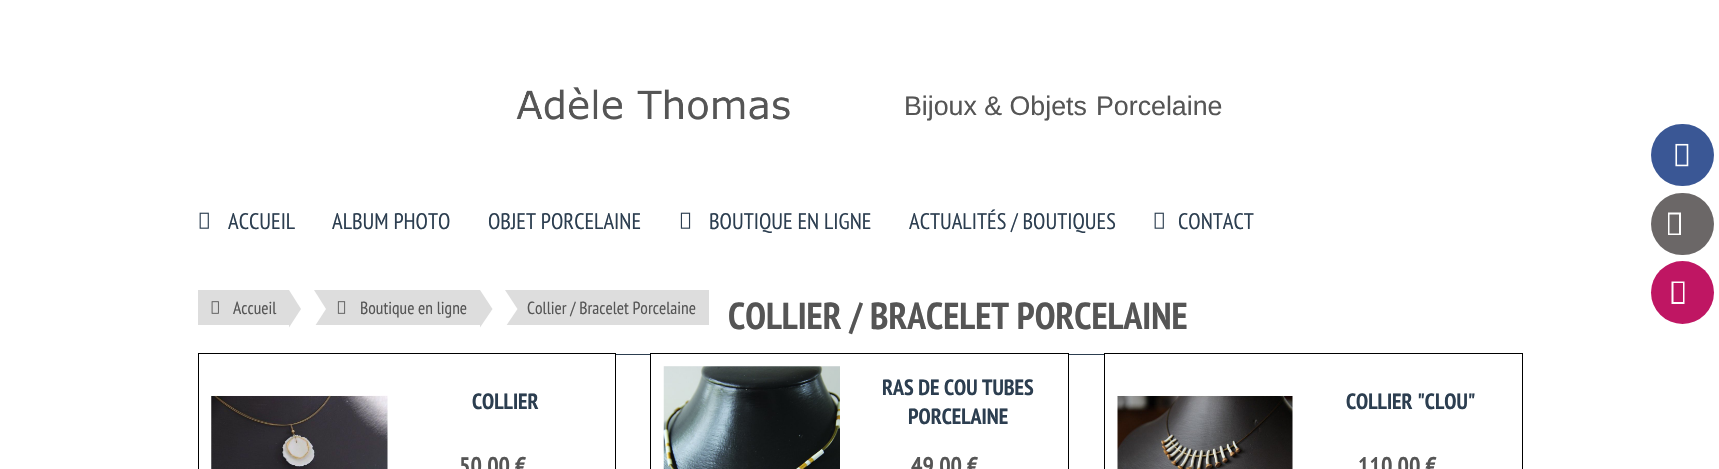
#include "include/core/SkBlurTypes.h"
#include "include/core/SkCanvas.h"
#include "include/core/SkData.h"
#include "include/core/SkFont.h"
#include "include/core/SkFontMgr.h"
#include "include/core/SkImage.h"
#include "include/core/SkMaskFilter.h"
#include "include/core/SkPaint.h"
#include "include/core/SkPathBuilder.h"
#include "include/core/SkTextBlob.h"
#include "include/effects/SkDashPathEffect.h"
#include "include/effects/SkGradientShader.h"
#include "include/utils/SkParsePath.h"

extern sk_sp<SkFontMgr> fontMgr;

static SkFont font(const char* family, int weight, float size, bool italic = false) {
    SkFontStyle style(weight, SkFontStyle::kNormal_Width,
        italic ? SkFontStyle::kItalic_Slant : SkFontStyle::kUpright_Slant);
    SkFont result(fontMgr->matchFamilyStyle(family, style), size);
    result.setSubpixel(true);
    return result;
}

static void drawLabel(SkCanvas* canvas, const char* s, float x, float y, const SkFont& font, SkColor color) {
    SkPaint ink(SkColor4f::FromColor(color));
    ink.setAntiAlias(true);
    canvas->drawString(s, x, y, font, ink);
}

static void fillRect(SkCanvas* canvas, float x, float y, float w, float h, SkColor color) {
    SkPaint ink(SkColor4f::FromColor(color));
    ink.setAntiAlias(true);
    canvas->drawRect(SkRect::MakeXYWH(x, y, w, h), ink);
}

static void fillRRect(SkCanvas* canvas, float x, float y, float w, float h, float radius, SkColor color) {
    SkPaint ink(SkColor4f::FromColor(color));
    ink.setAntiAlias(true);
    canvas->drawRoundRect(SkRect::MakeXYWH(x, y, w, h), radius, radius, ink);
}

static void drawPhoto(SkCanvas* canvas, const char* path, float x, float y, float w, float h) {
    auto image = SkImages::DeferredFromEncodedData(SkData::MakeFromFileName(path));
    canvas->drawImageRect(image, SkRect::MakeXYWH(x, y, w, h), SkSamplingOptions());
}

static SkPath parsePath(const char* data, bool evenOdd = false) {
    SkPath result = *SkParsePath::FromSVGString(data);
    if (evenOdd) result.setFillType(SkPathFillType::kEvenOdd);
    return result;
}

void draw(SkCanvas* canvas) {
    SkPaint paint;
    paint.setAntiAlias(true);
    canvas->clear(0xFFFFFFFF);
    drawPhoto(canvas, "assets/img1.png", 516, 87, 274, 33);
    SkFont font1 = font("Liberation Sans", 400, 26.75f);
    drawLabel(canvas, "Bijoux & Objets", 904, 115, font1, 0xFF555555);
    drawLabel(canvas, "Porcelaine", 1096, 115, font1, 0xFF555555);
    drawPhoto(canvas, "assets/img2.png", 199, 212, 10, 17);
    SkFont font2 = font("PT Sans Narrow", 400, 22.5f);
    drawLabel(canvas, "ACCUEIL", 228, 229, font2, 0xFF2C3E50);
    drawLabel(canvas, "ALBUM PHOTO", 332, 229, font2, 0xFF2C3E50);
    drawLabel(canvas, "OBJET PORCELAINE", 488, 229, font2, 0xFF2C3E50);
    drawPhoto(canvas, "assets/img3.png", 680, 212, 11, 17);
    drawLabel(canvas, "BOUTIQUE EN LIGNE", 709, 229, font2, 0xFF2C3E50);
    drawLabel(canvas, "ACTUALITÉS / BOUTIQUES", 909, 229, font2, 0xFF2C3E50);
    drawPhoto(canvas, "assets/img2.png", 1154, 212, 10, 17);
    drawLabel(canvas, "CONTACT", 1178, 229, font2, 0xFF2C3E50);
    fillRect(canvas, 198, 290, 91, 35, 0xFFDDDDDD);
    drawPhoto(canvas, "assets/img4.png", 211, 301, 8, 13);
    SkFont font3 = font("PT Sans Narrow", 400, 17.5f);
    drawLabel(canvas, "Accueil", 233, 314, font3, 0xFF555555);
    paint.setColor(0xFFDDDDDD);
    canvas->drawPath(parsePath("M289 327.5V290L301 309Z"), paint);
    fillRect(canvas, 314, 290, 166, 35, 0xFFDDDDDD);
    paint.setColor(0xFFFFFFFF);
    canvas->drawPath(parsePath("M314 327.5V290L326 309Z"), paint);
    drawPhoto(canvas, "assets/img5.png", 337, 301, 9, 13);
    drawLabel(canvas, "Boutique en ligne", 360, 314, font3, 0xFF555555);
    paint.setColor(0xFFDDDDDD);
    canvas->drawPath(parsePath("M480 327.5V290L492.5 309Z"), paint);
    fillRect(canvas, 505, 290, 204, 35, 0xFFDDDDDD);
    paint.setColor(0xFFFFFFFF);
    canvas->drawPath(parsePath("M505 327.5V290L517.5 309Z"), paint);
    drawLabel(canvas, "Collier / Bracelet Porcelaine", 527, 314, font3, 0xFF555555);
    SkFont font4 = font("PT Sans Narrow", 700, 37.5f);
    drawLabel(canvas, "COLLIER / BRACELET PORCELAINE", 728, 329, font4, 0xFF555555);
    fillRect(canvas, 616, 354, 488, 1, 0xFF2C3E50);
    paint.setStroke(true);
    paint.setStrokeWidth(1);
    paint.setColor(0xFF000000);
    canvas->drawRect(SkRect::MakeXYWH(198.5f, 353.5f, 417, 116), paint);
    drawPhoto(canvas, "assets/img6.png", 211, 395, 177, 74);
    SkFont font5 = font("PT Sans Narrow", 700, 22);
    drawLabel(canvas, "COLLIER", 472, 409, font5, 0xFF2C3E50);
    SkFont font6 = font("PT Sans Narrow", 700, 24);
    drawLabel(canvas, "50,00 €", 459, 474, font6, 0xFF555555);
    fillRect(canvas, 651, 354, 417, 1, 0xFFFFFFFF);
    canvas->drawRect(SkRect::MakeXYWH(650.5f, 353.5f, 418, 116), paint);
    drawPhoto(canvas, "assets/img7.png", 663, 366, 177, 103);
    drawLabel(canvas, "RAS DE COU TUBES", 882, 395, font5, 0xFF2C3E50);
    drawLabel(canvas, "PORCELAINE", 908, 424, font5, 0xFF2C3E50);
    drawLabel(canvas, "49,00 €", 911, 474, font6, 0xFF555555);
    canvas->drawRect(SkRect::MakeXYWH(1104.5f, 353.5f, 418, 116), paint);
    drawPhoto(canvas, "assets/img8.png", 1117, 395, 176, 74);
    drawLabel(canvas, "COLLIER \"CLOU\"", 1346, 409, font5, 0xFF2C3E50);
    drawLabel(canvas, "110,00 €", 1358, 474, font6, 0xFF555555);
    fillRRect(canvas, 1651, 124, 63, 62, 31, 0xFF3A5795);
    drawPhoto(canvas, "assets/img9.png", 1675, 143, 14, 24);
    fillRRect(canvas, 1651, 193, 63, 62, 31, 0xFF6B6767);
    paint.setStroke(false);
    paint.setColor(0xFFFFFFFF);
    canvas->drawPath(parsePath("M1668 235V212.5H1681V235ZM1669.5 233.5H1679V214.5H1669.5Z"), paint);
    paint.setColor(0xFFBF1663);
    canvas->drawCircle(1682.5f, 292.5f, 31.5f, paint);
    paint.setColor(0xFFFFFFFF);
    canvas->drawPath(parsePath("M1671.5 304V281.5H1684.5V304ZM1673.5 302H1683V283H1673.5Z"), paint);
}
